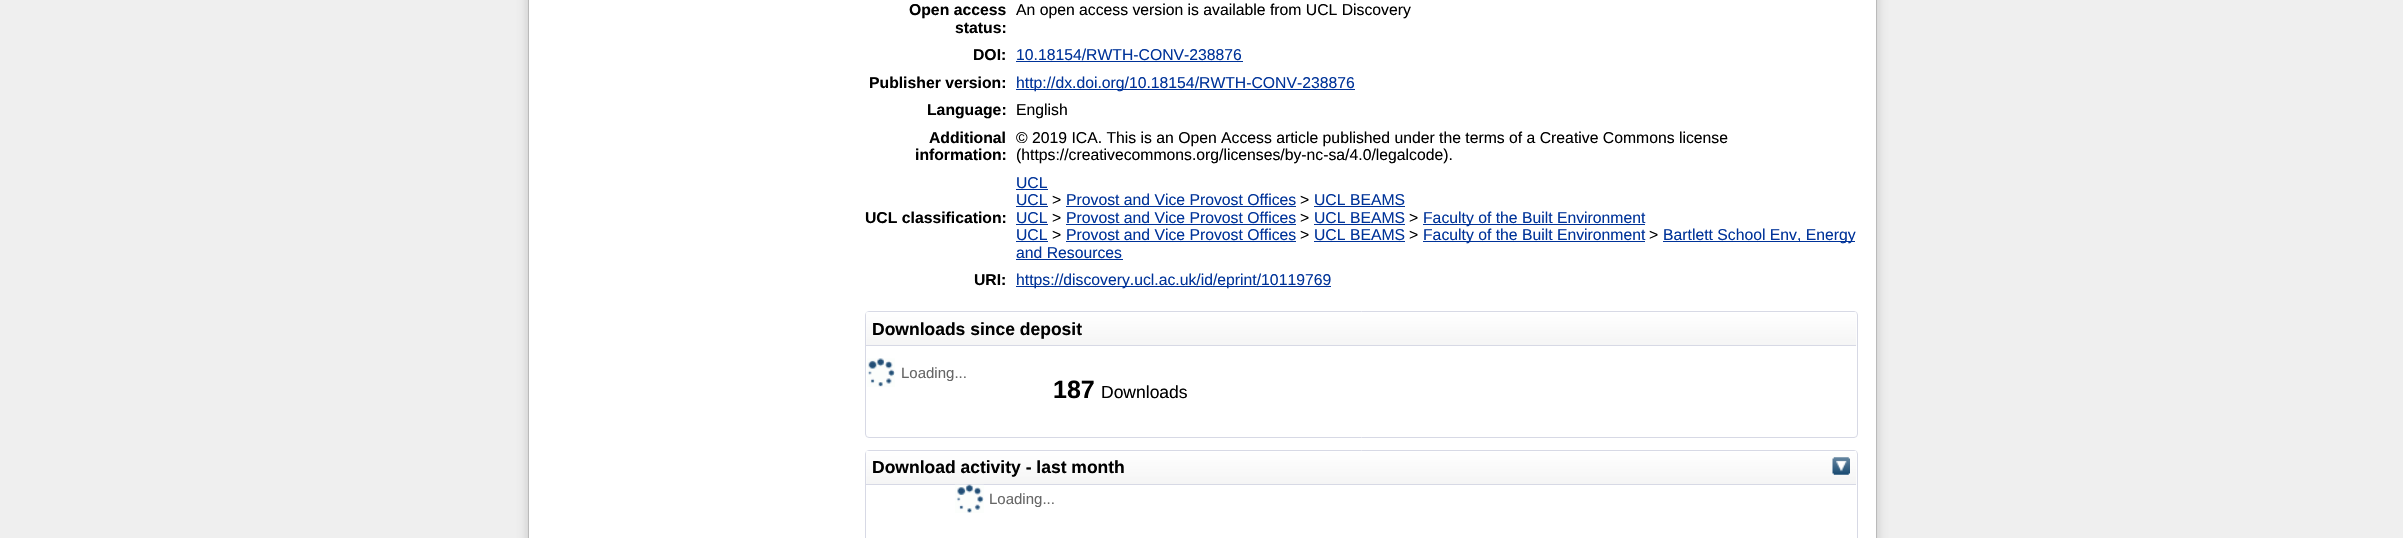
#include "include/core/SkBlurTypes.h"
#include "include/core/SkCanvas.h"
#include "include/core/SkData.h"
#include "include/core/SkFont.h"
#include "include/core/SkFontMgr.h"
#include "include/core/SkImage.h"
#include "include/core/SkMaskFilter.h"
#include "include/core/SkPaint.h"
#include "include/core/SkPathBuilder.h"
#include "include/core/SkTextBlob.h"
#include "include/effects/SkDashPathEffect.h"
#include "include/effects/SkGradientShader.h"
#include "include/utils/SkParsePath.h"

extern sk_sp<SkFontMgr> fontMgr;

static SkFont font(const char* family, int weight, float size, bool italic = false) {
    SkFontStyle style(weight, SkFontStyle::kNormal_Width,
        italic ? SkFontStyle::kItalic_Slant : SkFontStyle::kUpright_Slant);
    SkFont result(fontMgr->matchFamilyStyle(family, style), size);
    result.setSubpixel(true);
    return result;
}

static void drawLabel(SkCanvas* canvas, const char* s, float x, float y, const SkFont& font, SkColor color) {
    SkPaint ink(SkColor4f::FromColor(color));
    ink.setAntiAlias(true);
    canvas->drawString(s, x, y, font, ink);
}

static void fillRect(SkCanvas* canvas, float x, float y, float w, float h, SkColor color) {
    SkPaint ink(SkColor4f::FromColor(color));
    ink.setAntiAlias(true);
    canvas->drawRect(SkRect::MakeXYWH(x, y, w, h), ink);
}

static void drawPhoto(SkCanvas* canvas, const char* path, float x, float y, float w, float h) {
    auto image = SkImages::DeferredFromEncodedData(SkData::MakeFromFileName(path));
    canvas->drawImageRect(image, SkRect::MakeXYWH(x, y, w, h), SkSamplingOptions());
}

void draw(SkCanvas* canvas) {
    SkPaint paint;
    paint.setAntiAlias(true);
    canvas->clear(0xFFEFEFEF);
    fillRect(canvas, 1876, 0, 1, 538, 0xFFCCCCCC);
    fillRect(canvas, 528, 0, 1, 538, 0xFFCCCCCC);
    paint.setColor(0x4D505050);
    paint.setMaskFilter(SkMaskFilter::MakeBlur(kNormal_SkBlurStyle, 6));
    canvas->drawRect(SkRect::MakeXYWH(529, -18, 1347, 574), paint);
    paint.setMaskFilter(nullptr);
    fillRect(canvas, 529, 0, 1347, 538, 0xFFFFFFFF);
    SkFont font1 = font("Liberation Sans", 700, 15.75f);
    drawLabel(canvas, "Open access", 909, 15, font1, 0xFF000000);
    drawLabel(canvas, "status:", 955, 33, font1, 0xFF000000);
    SkFont font2 = font("Liberation Sans", 400, 15.75f);
    drawLabel(canvas, "An open access version is available from UCL Discovery", 1016, 15, font2, 0xFF000000);
    drawLabel(canvas, "DOI:", 973, 60, font1, 0xFF000000);
    drawLabel(canvas, "10.18154/RWTH-CONV-238876", 1016, 60, font2, 0xFF003399);
    fillRect(canvas, 1016, 61, 227, 1, 0xFF003399);
    drawLabel(canvas, "Publisher version:", 869, 88, font1, 0xFF000000);
    fillRect(canvas, 1016, 89, 339, 1, 0xFF003399);
    drawLabel(canvas, "http://dx.doi.org/10.18154/RWTH-CONV-238876", 1016, 88, font2, 0xFF003399);
    drawLabel(canvas, "Language:", 927, 115, font1, 0xFF000000);
    drawLabel(canvas, "English", 1016, 115, font2, 0xFF000000);
    drawLabel(canvas, "Additional", 929, 143, font1, 0xFF000000);
    drawLabel(canvas, "information:", 915, 160, font1, 0xFF000000);
    drawLabel(canvas, "© 2019 ICA. This is an Open Access article published under the terms of a Creative Commons license", 1016, 143, font2, 0xFF000000);
    drawLabel(canvas, "(https://creativecommons.org/licenses/by-nc-sa/4.0/legalcode).", 1016, 160, font2, 0xFF000000);
    drawLabel(canvas, "UCL classification:", 865, 223, font1, 0xFF000000);
    drawLabel(canvas, "UCL", 1016, 188, font2, 0xFF003399);
    fillRect(canvas, 1016, 189, 32, 1, 0xFF003399);
    drawLabel(canvas, "UCL", 1016, 205, font2, 0xFF003399);
    fillRect(canvas, 1016, 206, 32, 1, 0xFF003399);
    drawLabel(canvas, ">", 1052, 205, font2, 0xFF000000);
    drawLabel(canvas, "Provost and Vice Provost Offices", 1066, 205, font2, 0xFF003399);
    fillRect(canvas, 1066, 206, 230, 1, 0xFF003399);
    drawLabel(canvas, ">", 1300, 205, font2, 0xFF000000);
    drawLabel(canvas, "UCL BEAMS", 1314, 205, font2, 0xFF003399);
    fillRect(canvas, 1314, 206, 91, 1, 0xFF003399);
    drawLabel(canvas, "UCL", 1016, 223, font2, 0xFF003399);
    fillRect(canvas, 1016, 224, 32, 1, 0xFF003399);
    drawLabel(canvas, ">", 1052, 223, font2, 0xFF000000);
    drawLabel(canvas, "Provost and Vice Provost Offices", 1066, 223, font2, 0xFF003399);
    fillRect(canvas, 1066, 224, 230, 1, 0xFF003399);
    drawLabel(canvas, ">", 1300, 223, font2, 0xFF000000);
    drawLabel(canvas, "UCL BEAMS", 1314, 223, font2, 0xFF003399);
    fillRect(canvas, 1314, 224, 91, 1, 0xFF003399);
    drawLabel(canvas, ">", 1409, 223, font2, 0xFF000000);
    fillRect(canvas, 1423, 224, 222, 1, 0xFF003399);
    drawLabel(canvas, "Faculty of the Built Environment", 1423, 223, font2, 0xFF003399);
    drawLabel(canvas, "UCL", 1016, 240, font2, 0xFF003399);
    fillRect(canvas, 1016, 241, 32, 1, 0xFF003399);
    drawLabel(canvas, ">", 1052, 240, font2, 0xFF000000);
    drawLabel(canvas, "Provost and Vice Provost Offices", 1066, 240, font2, 0xFF003399);
    fillRect(canvas, 1066, 241, 230, 1, 0xFF003399);
    drawLabel(canvas, ">", 1300, 240, font2, 0xFF000000);
    drawLabel(canvas, "UCL BEAMS", 1314, 240, font2, 0xFF003399);
    fillRect(canvas, 1314, 241, 91, 1, 0xFF003399);
    drawLabel(canvas, ">", 1409, 240, font2, 0xFF000000);
    fillRect(canvas, 1423, 241, 222, 1, 0xFF003399);
    drawLabel(canvas, "Faculty of the Built Environment", 1423, 240, font2, 0xFF003399);
    drawLabel(canvas, ">", 1649, 240, font2, 0xFF000000);
    fillRect(canvas, 1663, 241, 192, 1, 0xFF003399);
    drawLabel(canvas, "Bartlett School Env, Energy", 1663, 240, font2, 0xFF003399);
    drawLabel(canvas, "and Resources", 1016, 258, font2, 0xFF003399);
    fillRect(canvas, 1016, 259, 107, 1, 0xFF003399);
    drawLabel(canvas, "URI:", 974, 285, font1, 0xFF000000);
    fillRect(canvas, 1016, 286, 315, 1, 0xFF003399);
    drawLabel(canvas, "https://discovery.ucl.ac.uk/id/eprint/10119769", 1016, 285, font2, 0xFF003399);
    paint.setStroke(true);
    paint.setStrokeWidth(1);
    paint.setColor(0xFFD7D9E5);
    canvas->drawRoundRect(SkRect::MakeXYWH(865.5f, 311.5f, 992, 126), 3.5f, 3.5f, paint);
    drawPhoto(canvas, "assets/img1.png", 866, 312, 991, 34);
    fillRect(canvas, 866, 345, 990, 1, 0xFFD7D9E5);
    SkFont font3 = font("Liberation Sans", 700, 17.5f);
    drawLabel(canvas, "Downloads since deposit", 872, 335, font3, 0xFF000000);
    drawPhoto(canvas, "assets/img2.png", 867, 358, 28, 29);
    SkFont font4 = font("Liberation Sans", 400, 15);
    drawLabel(canvas, "Loading...", 901, 378, font4, 0xFF666666);
    SkFont font5 = font("Liberation Sans", 700, 25);
    drawLabel(canvas, "187", 1053, 398, font5, 0xFF000000);
    SkFont font6 = font("Liberation Sans", 400, 17.5f);
    drawLabel(canvas, "Downloads", 1101, 398, font6, 0xFF000000);
    canvas->drawRoundRect(SkRect::MakeXYWH(865.5f, 450.5f, 992, 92), 3.5f, 3.5f, paint);
    drawPhoto(canvas, "assets/img3.png", 866, 451, 991, 34);
    fillRect(canvas, 866, 484, 990, 1, 0xFFD7D9E5);
    drawLabel(canvas, "Download activity - last month", 872, 473, font3, 0xFF000000);
    drawPhoto(canvas, "assets/img4.png", 1832, 457, 18, 18);
    drawPhoto(canvas, "assets/img5.png", 955, 484, 29, 29);
    drawLabel(canvas, "Loading...", 989, 504, font4, 0xFF666666);
}
